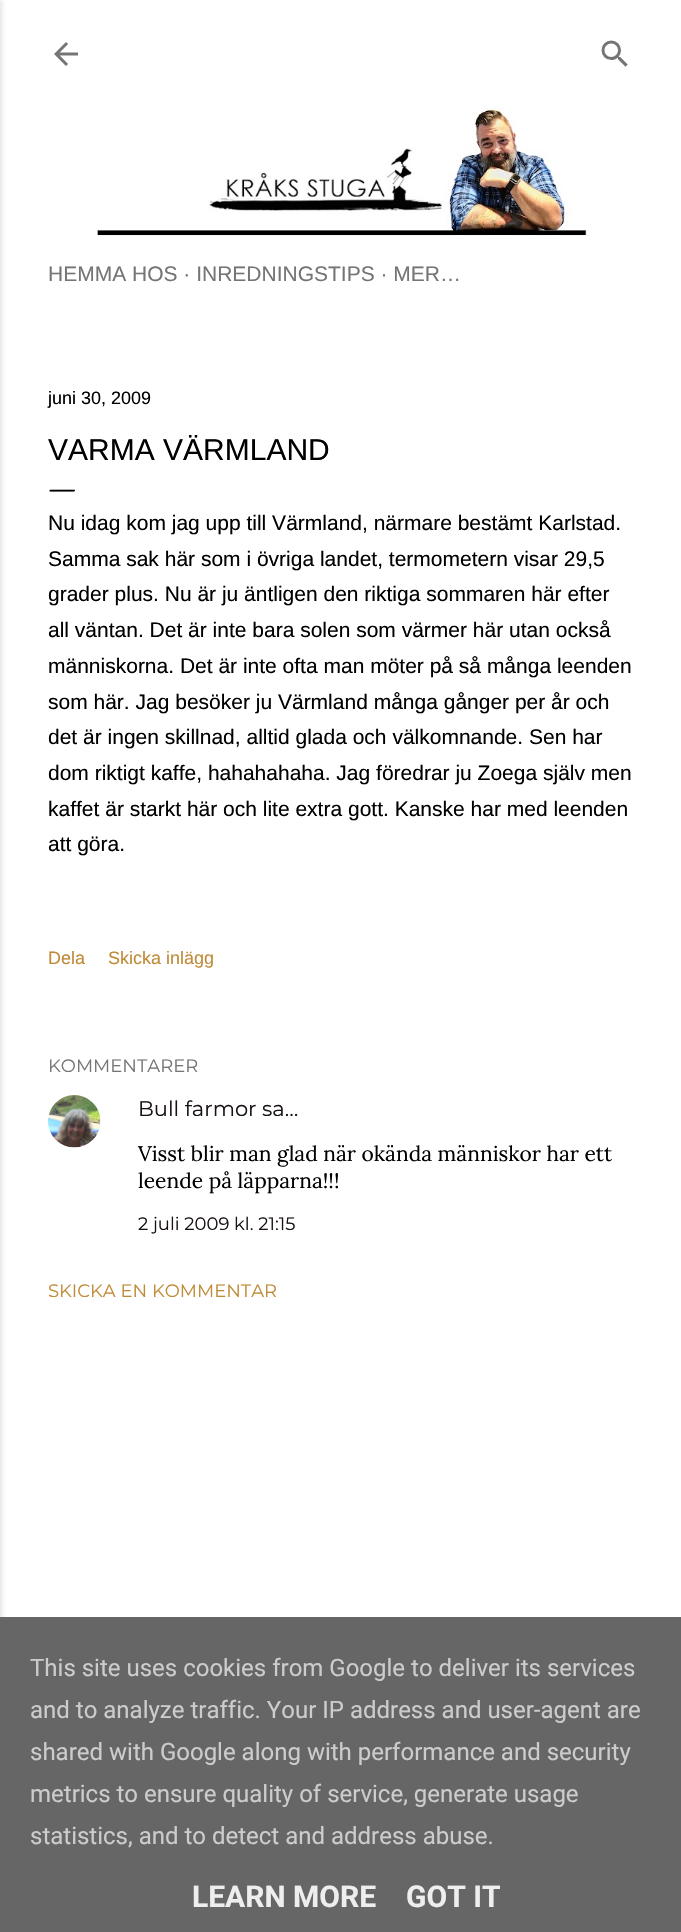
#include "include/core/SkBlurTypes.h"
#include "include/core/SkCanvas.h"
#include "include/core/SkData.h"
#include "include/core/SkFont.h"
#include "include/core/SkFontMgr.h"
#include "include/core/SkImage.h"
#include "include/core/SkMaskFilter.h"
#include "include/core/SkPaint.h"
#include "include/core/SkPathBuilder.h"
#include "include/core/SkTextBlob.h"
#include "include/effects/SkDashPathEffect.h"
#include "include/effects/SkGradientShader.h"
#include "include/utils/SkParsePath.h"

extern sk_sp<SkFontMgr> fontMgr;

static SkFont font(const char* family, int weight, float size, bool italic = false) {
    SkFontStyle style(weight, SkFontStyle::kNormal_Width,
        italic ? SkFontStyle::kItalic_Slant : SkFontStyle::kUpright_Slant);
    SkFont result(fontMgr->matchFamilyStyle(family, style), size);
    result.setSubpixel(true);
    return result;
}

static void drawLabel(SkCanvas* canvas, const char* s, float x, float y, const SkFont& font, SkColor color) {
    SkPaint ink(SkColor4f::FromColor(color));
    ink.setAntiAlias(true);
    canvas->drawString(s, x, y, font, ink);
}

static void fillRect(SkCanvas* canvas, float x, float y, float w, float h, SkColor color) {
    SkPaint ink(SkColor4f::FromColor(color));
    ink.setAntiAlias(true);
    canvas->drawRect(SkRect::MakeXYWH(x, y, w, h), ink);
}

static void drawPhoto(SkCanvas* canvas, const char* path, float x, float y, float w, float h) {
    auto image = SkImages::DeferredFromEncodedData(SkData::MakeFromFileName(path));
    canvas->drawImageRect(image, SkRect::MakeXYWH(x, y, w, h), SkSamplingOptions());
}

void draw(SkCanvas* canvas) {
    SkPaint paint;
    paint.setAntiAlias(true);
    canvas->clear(0xFFFFFFFF);
    paint.setColor(0x1A000000);
    paint.setMaskFilter(SkMaskFilter::MakeBlur(kNormal_SkBlurStyle, 2));
    canvas->drawRect(SkRect::MakeXYWH(-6, 0, 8, 1932), paint);
    paint.setMaskFilter(nullptr);
    drawPhoto(canvas, "assets/img1.png", 54, 42, 24, 24);
    drawPhoto(canvas, "assets/img2.png", 601, 40, 27, 27);
    drawPhoto(canvas, "assets/img3.png", 97, 102, 490, 134);
    SkFont font1 = font("Arimo", 400, 21);
    drawLabel(canvas, "HEMMA HOS · INREDNINGSTIPS · MER…", 48, 281, font1, 0xFF757575);
    SkFont font2 = font("Arimo", 400, 18);
    drawLabel(canvas, "juni 30, 2009", 48, 404, font2, 0xFF000000);
    SkFont font3 = font("Arimo", 400, 30);
    drawLabel(canvas, "VARMA VÄRMLAND", 48, 460, font3, 0xFF000000);
    SkFont font4 = font("EB Garamond", 400, 30);
    drawLabel(canvas, "—", 48, 497, font4, 0xFF000000);
    drawLabel(canvas, "Nu idag kom jag upp till Värmland, närmare bestämt Karlstad.", 48, 530, font1, 0xFF000000);
    drawLabel(canvas, "Samma sak här som i övriga landet, termometern visar 29,5", 48, 566, font1, 0xFF000000);
    drawLabel(canvas, "grader plus. Nu är ju äntligen den riktiga sommaren här efter", 48, 601, font1, 0xFF000000);
    drawLabel(canvas, "all väntan. Det är inte bara solen som värmer här utan också", 48, 637, font1, 0xFF000000);
    drawLabel(canvas, "människorna. Det är inte ofta man möter på så många leenden", 48, 673, font1, 0xFF000000);
    drawLabel(canvas, "som här. Jag besöker ju Värmland många gånger per år och", 48, 709, font1, 0xFF000000);
    drawLabel(canvas, "det är ingen skillnad, alltid glada och välkomnande. Sen har", 48, 744, font1, 0xFF000000);
    drawLabel(canvas, "dom riktigt kaffe, hahahahaha. Jag föredrar ju Zoega själv men", 48, 780, font1, 0xFF000000);
    drawLabel(canvas, "kaffet är starkt här och lite extra gott. Kanske har med leenden", 48, 816, font1, 0xFF000000);
    drawLabel(canvas, "att göra.", 48, 851, font1, 0xFF000000);
    drawLabel(canvas, "Dela", 48, 964, font2, 0xFFBF8B38);
    drawLabel(canvas, "Skicka inlägg", 108, 964, font2, 0xFFBF8B38);
    SkFont font5 = font("Montserrat", 400, 18);
    drawLabel(canvas, "KOMMENTARER", 48, 1072, font5, 0xFF757575);
    drawPhoto(canvas, "assets/img4.png", 48, 1095, 53, 53);
    SkFont font6 = font("Montserrat", 400, 21);
    drawLabel(canvas, "Bull farmor sa…", 138, 1116, font6, 0xFF181214);
    SkFont font7 = font("Lora", 400, 21);
    drawLabel(canvas, "Visst blir man glad när okända människor har ett", 138, 1161, font7, 0xFF000000);
    drawLabel(canvas, "leende på läpparna!!!", 138, 1188, font7, 0xFF000000);
    drawLabel(canvas, "2 juli 2009 kl. 21:15", 138, 1230, font5, 0xFF181214);
    drawLabel(canvas, "SKICKA EN KOMMENTAR", 48, 1297, font5, 0xFFBF8B38);
    fillRect(canvas, 0, 1617, 681, 315, 0xFF666666);
    SkFont font8 = font("Roboto", 400, 24);
    drawLabel(canvas, "This site uses cookies from Google to deliver its services", 30, 1676, font8, 0xFFCCCCCC);
    drawLabel(canvas, "and to analyze traffic. Your IP address and user-agent are", 30, 1718, font8, 0xFFCCCCCC);
    drawLabel(canvas, "shared with Google along with performance and security", 30, 1760, font8, 0xFFCCCCCC);
    drawLabel(canvas, "metrics to ensure quality of service, generate usage", 30, 1802, font8, 0xFFCCCCCC);
    drawLabel(canvas, "statistics, and to detect and address abuse.", 30, 1844, font8, 0xFFCCCCCC);
    SkFont font9 = font("Roboto", 700, 30);
    drawLabel(canvas, "LEARN MORE", 192, 1907, font9, 0xFFEEEEEE);
    drawLabel(canvas, "GOT IT", 406, 1907, font9, 0xFFEEEEEE);
}
